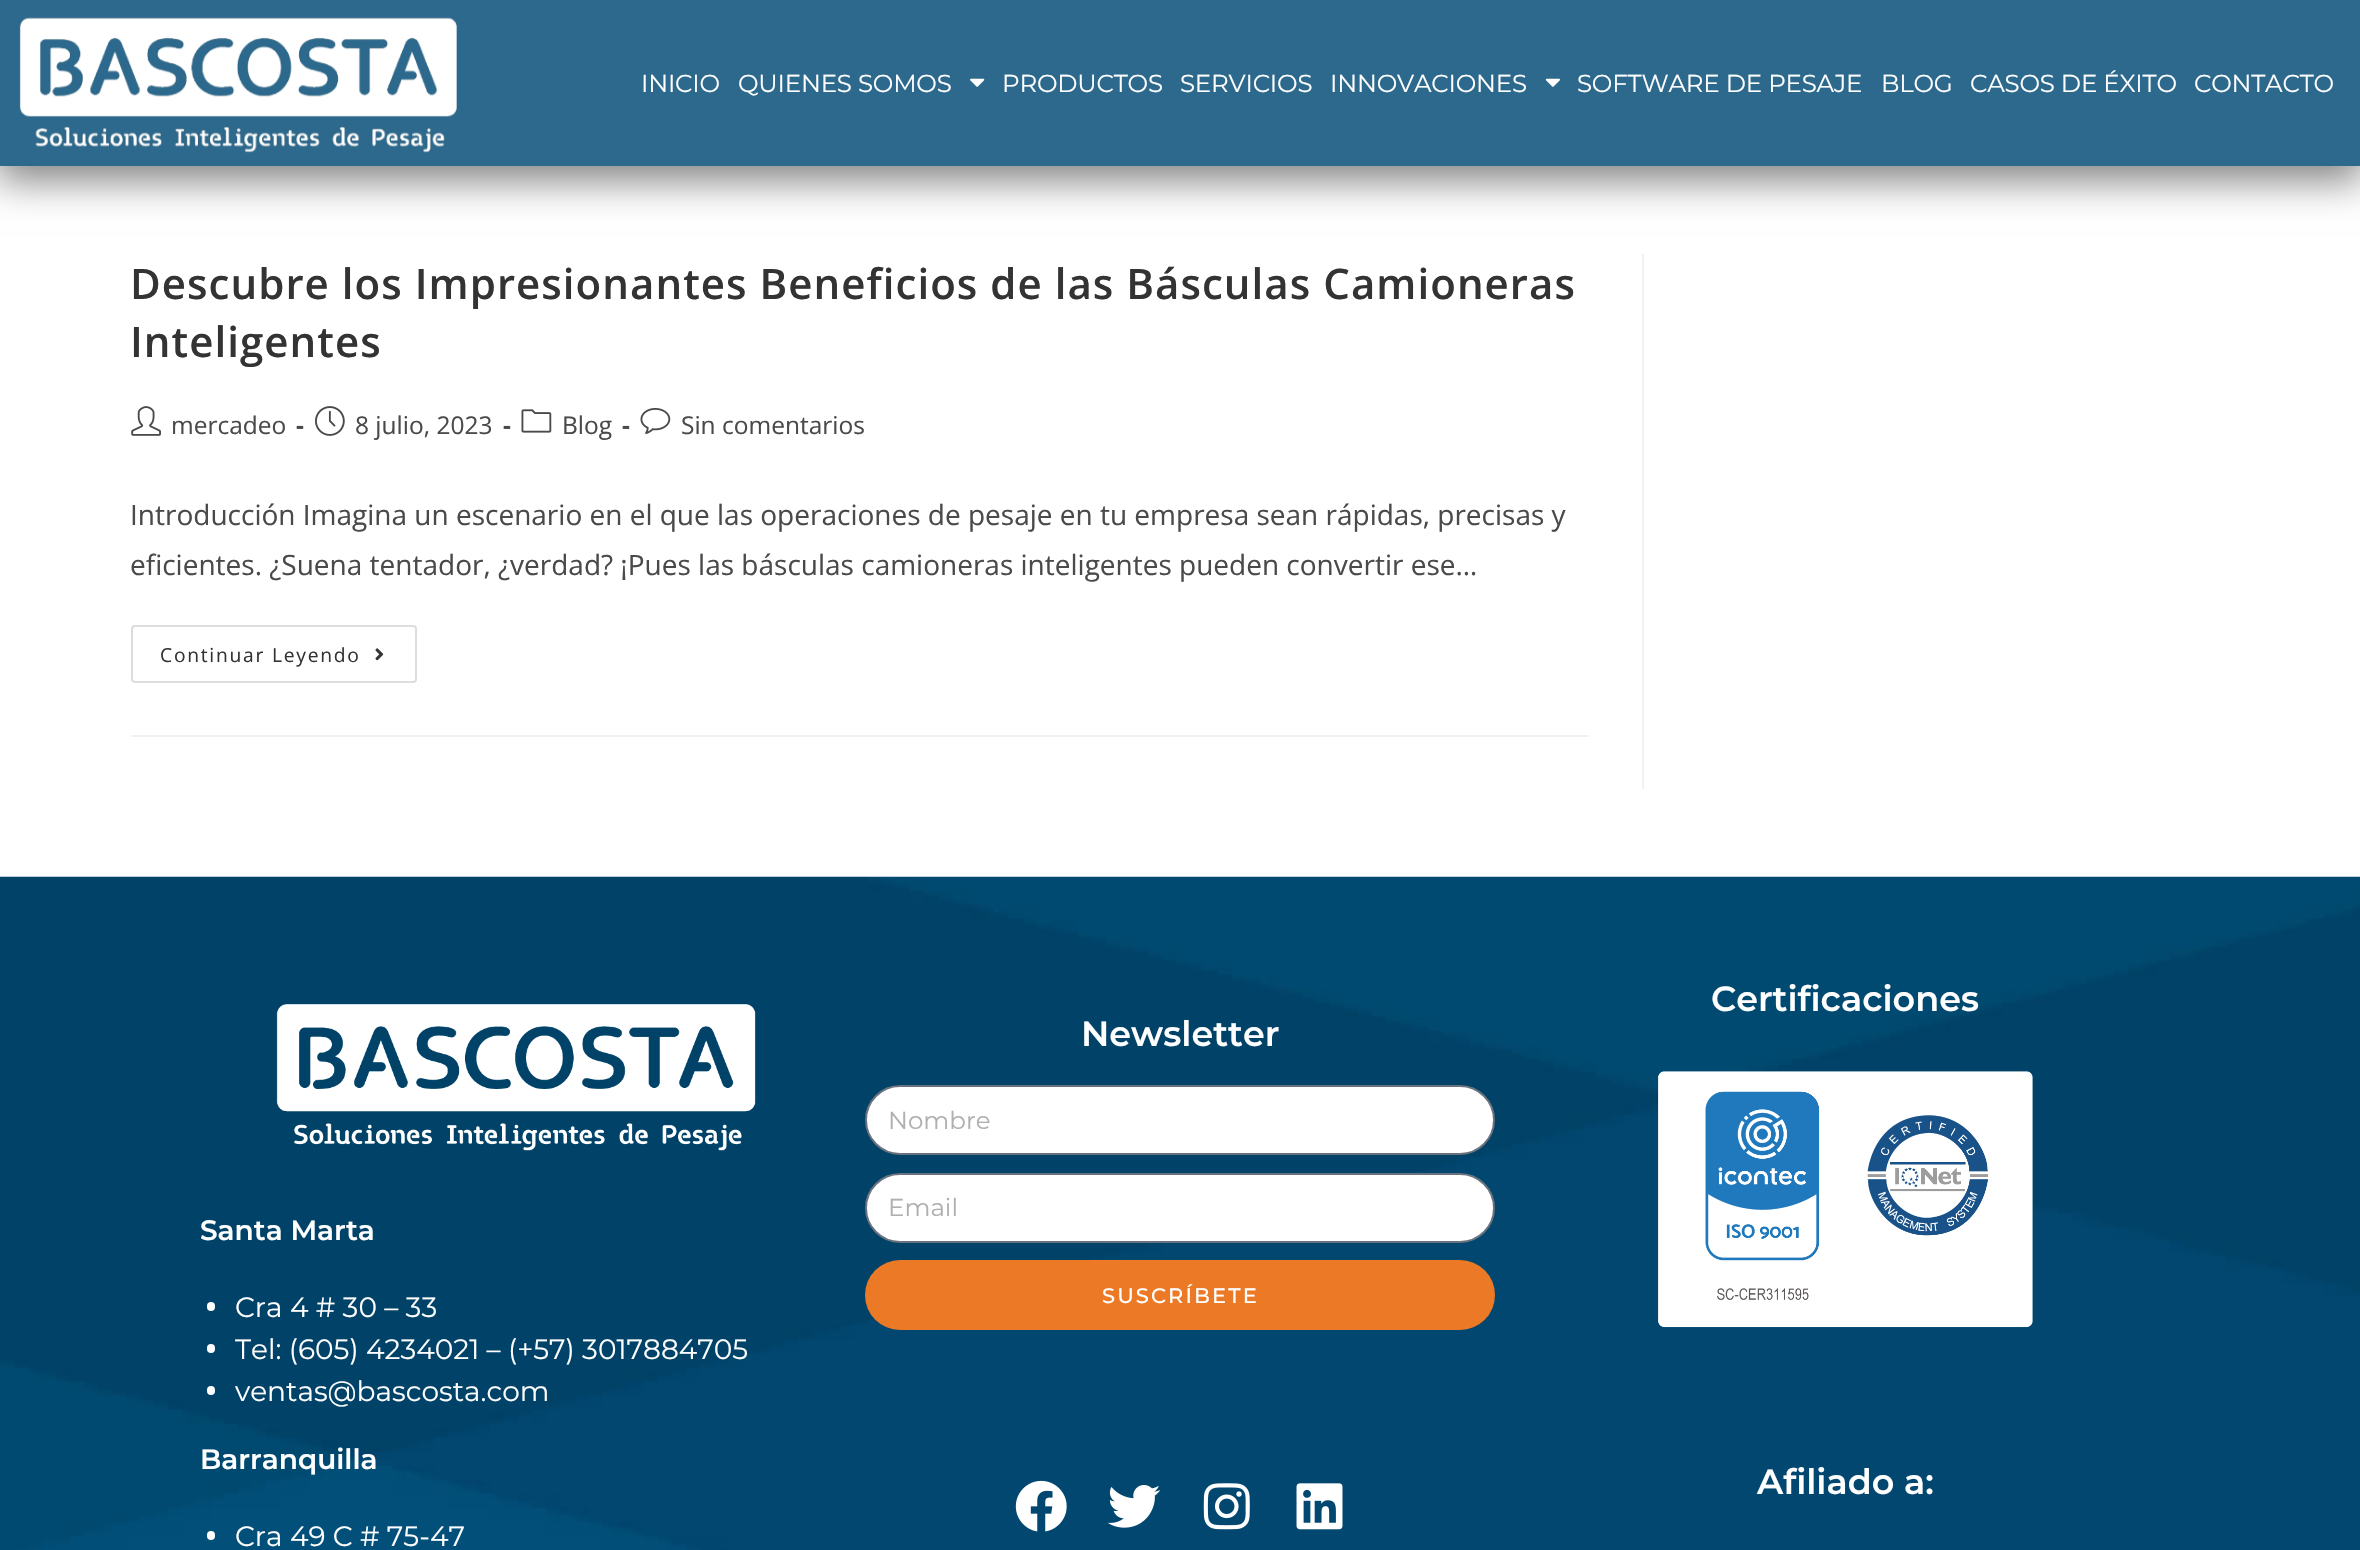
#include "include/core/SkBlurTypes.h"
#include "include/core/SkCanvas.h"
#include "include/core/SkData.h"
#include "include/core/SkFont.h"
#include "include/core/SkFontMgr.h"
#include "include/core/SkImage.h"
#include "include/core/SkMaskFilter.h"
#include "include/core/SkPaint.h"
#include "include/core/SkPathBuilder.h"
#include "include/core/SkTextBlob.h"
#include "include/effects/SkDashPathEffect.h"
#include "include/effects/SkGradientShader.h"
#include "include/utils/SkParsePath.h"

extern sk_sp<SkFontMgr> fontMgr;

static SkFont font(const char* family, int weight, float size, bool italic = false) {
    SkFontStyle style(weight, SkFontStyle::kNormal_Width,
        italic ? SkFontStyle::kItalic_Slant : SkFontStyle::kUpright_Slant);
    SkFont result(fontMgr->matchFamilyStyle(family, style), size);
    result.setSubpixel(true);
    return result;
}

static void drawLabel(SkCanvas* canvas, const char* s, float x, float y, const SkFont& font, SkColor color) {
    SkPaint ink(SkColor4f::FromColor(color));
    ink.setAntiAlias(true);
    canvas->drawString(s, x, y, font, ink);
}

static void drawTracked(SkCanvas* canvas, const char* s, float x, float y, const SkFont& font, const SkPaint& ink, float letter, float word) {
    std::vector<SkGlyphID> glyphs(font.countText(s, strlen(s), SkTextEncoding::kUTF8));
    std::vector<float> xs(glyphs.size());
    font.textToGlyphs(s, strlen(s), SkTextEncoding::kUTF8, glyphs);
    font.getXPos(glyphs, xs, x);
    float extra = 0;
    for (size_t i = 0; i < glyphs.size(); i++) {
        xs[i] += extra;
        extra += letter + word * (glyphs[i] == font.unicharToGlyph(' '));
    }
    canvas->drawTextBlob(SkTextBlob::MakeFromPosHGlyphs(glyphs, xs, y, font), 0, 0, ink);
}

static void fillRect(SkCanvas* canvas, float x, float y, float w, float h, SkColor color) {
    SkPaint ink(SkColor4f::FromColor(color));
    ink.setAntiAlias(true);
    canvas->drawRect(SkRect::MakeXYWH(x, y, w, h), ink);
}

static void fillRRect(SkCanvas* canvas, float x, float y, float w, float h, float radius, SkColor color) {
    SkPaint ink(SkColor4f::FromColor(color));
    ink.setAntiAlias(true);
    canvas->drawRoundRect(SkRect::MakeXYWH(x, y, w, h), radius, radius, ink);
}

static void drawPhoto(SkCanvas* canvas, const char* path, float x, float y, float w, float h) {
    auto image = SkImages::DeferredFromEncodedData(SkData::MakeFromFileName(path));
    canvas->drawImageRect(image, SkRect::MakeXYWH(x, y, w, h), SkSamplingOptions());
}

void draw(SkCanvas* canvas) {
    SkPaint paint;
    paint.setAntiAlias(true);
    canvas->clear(0xFFFFFFFF);
    paint.setColor(0x80000000);
    paint.setMaskFilter(SkMaskFilter::MakeBlur(kNormal_SkBlurStyle, 19));
    canvas->drawRect(SkRect::MakeXYWH(-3, 7, 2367, 173), paint);
    paint.setMaskFilter(nullptr);
    fillRect(canvas, 0, 0, 2360, 166, 0xFF2C698D);
    drawPhoto(canvas, "assets/img1.png", 19, 17, 439, 136);
    SkFont font1 = font("Montserrat", 400, 24.5f);
    paint.setColor(0xFFFFFFFF);
    drawTracked(canvas, "INICIO", 641, 92, font1, paint, -0.2f, 0);
    drawTracked(canvas, "QUIENES SOMOS", 738, 92, font1, paint, -0.2f, 0);
    drawPhoto(canvas, "assets/img2.png", 970, 78, 15, 9);
    drawTracked(canvas, "PRODUCTOS", 1002, 92, font1, paint, -0.2f, 0);
    drawTracked(canvas, "SERVICIOS", 1180, 92, font1, paint, -0.2f, 0);
    drawTracked(canvas, "INNOVACIONES", 1330, 92, font1, paint, -0.2f, 0);
    drawPhoto(canvas, "assets/img3.png", 1545, 78, 15, 9);
    drawTracked(canvas, "SOFTWARE DE PESAJE", 1577, 92, font1, paint, -0.2f, 0);
    drawTracked(canvas, "BLOG", 1881, 92, font1, paint, -0.2f, 0);
    drawTracked(canvas, "CASOS DE ÉXITO", 1970, 92, font1, paint, -0.2f, 0);
    drawTracked(canvas, "CONTACTO", 2194, 92, font1, paint, -0.2f, 0);
    fillRect(canvas, 1642, 254, 2, 535, 0xFFF1F1F1);
    fillRect(canvas, 131, 735, 1458, 2, 0xFFF1F1F1);
    SkFont font2 = font("Open Sans", 600, 42);
    paint.setColor(0xFF333333);
    drawTracked(canvas, "Descubre los Impresionantes Beneficios de las Básculas Camioneras", 130, 299, font2, paint, 1.05f, 0);
    drawTracked(canvas, "Inteligentes", 130, 357, font2, paint, 1.05f, 0);
    drawPhoto(canvas, "assets/img4.png", 131, 406, 30, 30);
    SkFont font3 = font("Open Sans", 400, 24.5f);
    drawLabel(canvas, "mercadeo", 171, 434, font3, 0xFF4A4A4A);
    SkFont font4 = font("Open Sans", 700, 24.5f);
    drawLabel(canvas, "-", 296, 434, font4, 0xFF4A4A4A);
    drawPhoto(canvas, "assets/img5.png", 315, 406, 30, 30);
    drawLabel(canvas, "8 julio, 2023", 355, 434, font3, 0xFF4A4A4A);
    drawLabel(canvas, "-", 503, 434, font4, 0xFF4A4A4A);
    drawPhoto(canvas, "assets/img6.png", 521, 409, 31, 24);
    drawLabel(canvas, "Blog", 562, 434, font3, 0xFF4A4A4A);
    drawLabel(canvas, "-", 622, 434, font4, 0xFF4A4A4A);
    drawPhoto(canvas, "assets/img7.png", 640, 408, 31, 26);
    drawLabel(canvas, "Sin comentarios", 681, 434, font3, 0xFF4A4A4A);
    SkFont font5 = font("Open Sans", 400, 28);
    drawLabel(canvas, "Introducción Imagina un escenario en el que las operaciones de pesaje en tu empresa sean rápidas, precisas y", 130, 525, font5, 0xFF4A4A4A);
    drawLabel(canvas, "eficientes. ¿Suena tentador, ¿verdad? ¡Pues las básculas camioneras inteligentes pueden convertir ese…", 130, 575, font5, 0xFF4A4A4A);
    paint.setStroke(true);
    paint.setStrokeWidth(2);
    paint.setColor(0xFFDDDDDD);
    canvas->drawRoundRect(SkRect::MakeXYWH(132, 626, 284, 56), 3, 3, paint);
    SkFont font6 = font("Open Sans", 400, 19.25f);
    paint.setStroke(false);
    paint.setColor(0xFF333333);
    drawTracked(canvas, "Continuar Leyendo", 160, 662, font6, paint, 1.75f, 0);
    drawPhoto(canvas, "assets/img8.png", 375, 648, 9, 13);
    drawPhoto(canvas, "assets/img9.png", 0, 876, 2360, 674);
    SkFont font7 = font("Montserrat", 600, 35);
    drawLabel(canvas, "Newsletter", 1081, 1046, font7, 0xFFFFFFFF);
    paint.setColor(0xFFFFFFFF);
    canvas->drawRoundRect(SkRect::MakeXYWH(866, 1086, 628, 68), 34, 34, paint);
    paint.setStroke(true);
    paint.setColor(0xFF69727D);
    canvas->drawRoundRect(SkRect::MakeXYWH(866, 1086, 628, 68), 34, 34, paint);
    drawLabel(canvas, "Nombre", 888, 1129, font1, 0xFFAFAFAF);
    paint.setStroke(false);
    paint.setColor(0xFFFFFFFF);
    canvas->drawRoundRect(SkRect::MakeXYWH(866, 1174, 628, 68), 34, 34, paint);
    paint.setStroke(true);
    paint.setColor(0xFF69727D);
    canvas->drawRoundRect(SkRect::MakeXYWH(866, 1174, 628, 68), 34, 34, paint);
    drawLabel(canvas, "Email", 888, 1216, font1, 0xFFAFAFAF);
    fillRRect(canvas, 865, 1260, 630, 70, 35, 0xFFEB7925);
    SkFont font8 = font("Montserrat", 500, 21);
    paint.setStroke(false);
    paint.setColor(0xFFFFFFFF);
    drawTracked(canvas, "SUSCRÍBETE", 1102, 1303, font8, paint, 2.1f, 0);
    drawPhoto(canvas, "assets/img10.png", 1015, 1480, 52, 52);
    drawPhoto(canvas, "assets/img11.png", 1107, 1485, 54, 43);
    drawPhoto(canvas, "assets/img12.png", 1203, 1483, 47, 47);
    drawPhoto(canvas, "assets/img13.png", 1296, 1483, 47, 47);
    drawLabel(canvas, "Certificaciones", 1711, 1011, font7, 0xFFFFFFFF);
    drawPhoto(canvas, "assets/img14.png", 1658, 1071, 375, 257);
    drawLabel(canvas, "Afiliado a:", 1757, 1494, font7, 0xFFFFFFFF);
    drawPhoto(canvas, "assets/img15.png", 276, 1004, 480, 147);
    SkFont font9 = font("Montserrat", 600, 28);
    drawLabel(canvas, "Santa Marta", 200, 1240, font9, 0xFFFFFFFF);
    fillRRect(canvas, 207, 1302, 8, 9, 4, 0xFFFFFFFF);
    SkFont font10 = font("Montserrat", 400, 28);
    drawLabel(canvas, "Cra 4 # 30 – 33", 235, 1317, font10, 0xFFFFFFFF);
    fillRRect(canvas, 207, 1344, 8, 9, 4, 0xFFFFFFFF);
    drawLabel(canvas, "Tel: (605) 4234021 – (+57) 3017884705", 235, 1359, font10, 0xFFFFFFFF);
    fillRRect(canvas, 207, 1386, 8, 9, 4, 0xFFFFFFFF);
    drawLabel(canvas, "ventas@bascosta.com", 235, 1401, font10, 0xFFFFFFFF);
    drawLabel(canvas, "Barranquilla", 200, 1469, font9, 0xFFFFFFFF);
    fillRRect(canvas, 207, 1531, 8, 9, 4, 0xFFFFFFFF);
    drawLabel(canvas, "Cra 49 C # 75-47", 235, 1546, font10, 0xFFFFFFFF);
}
